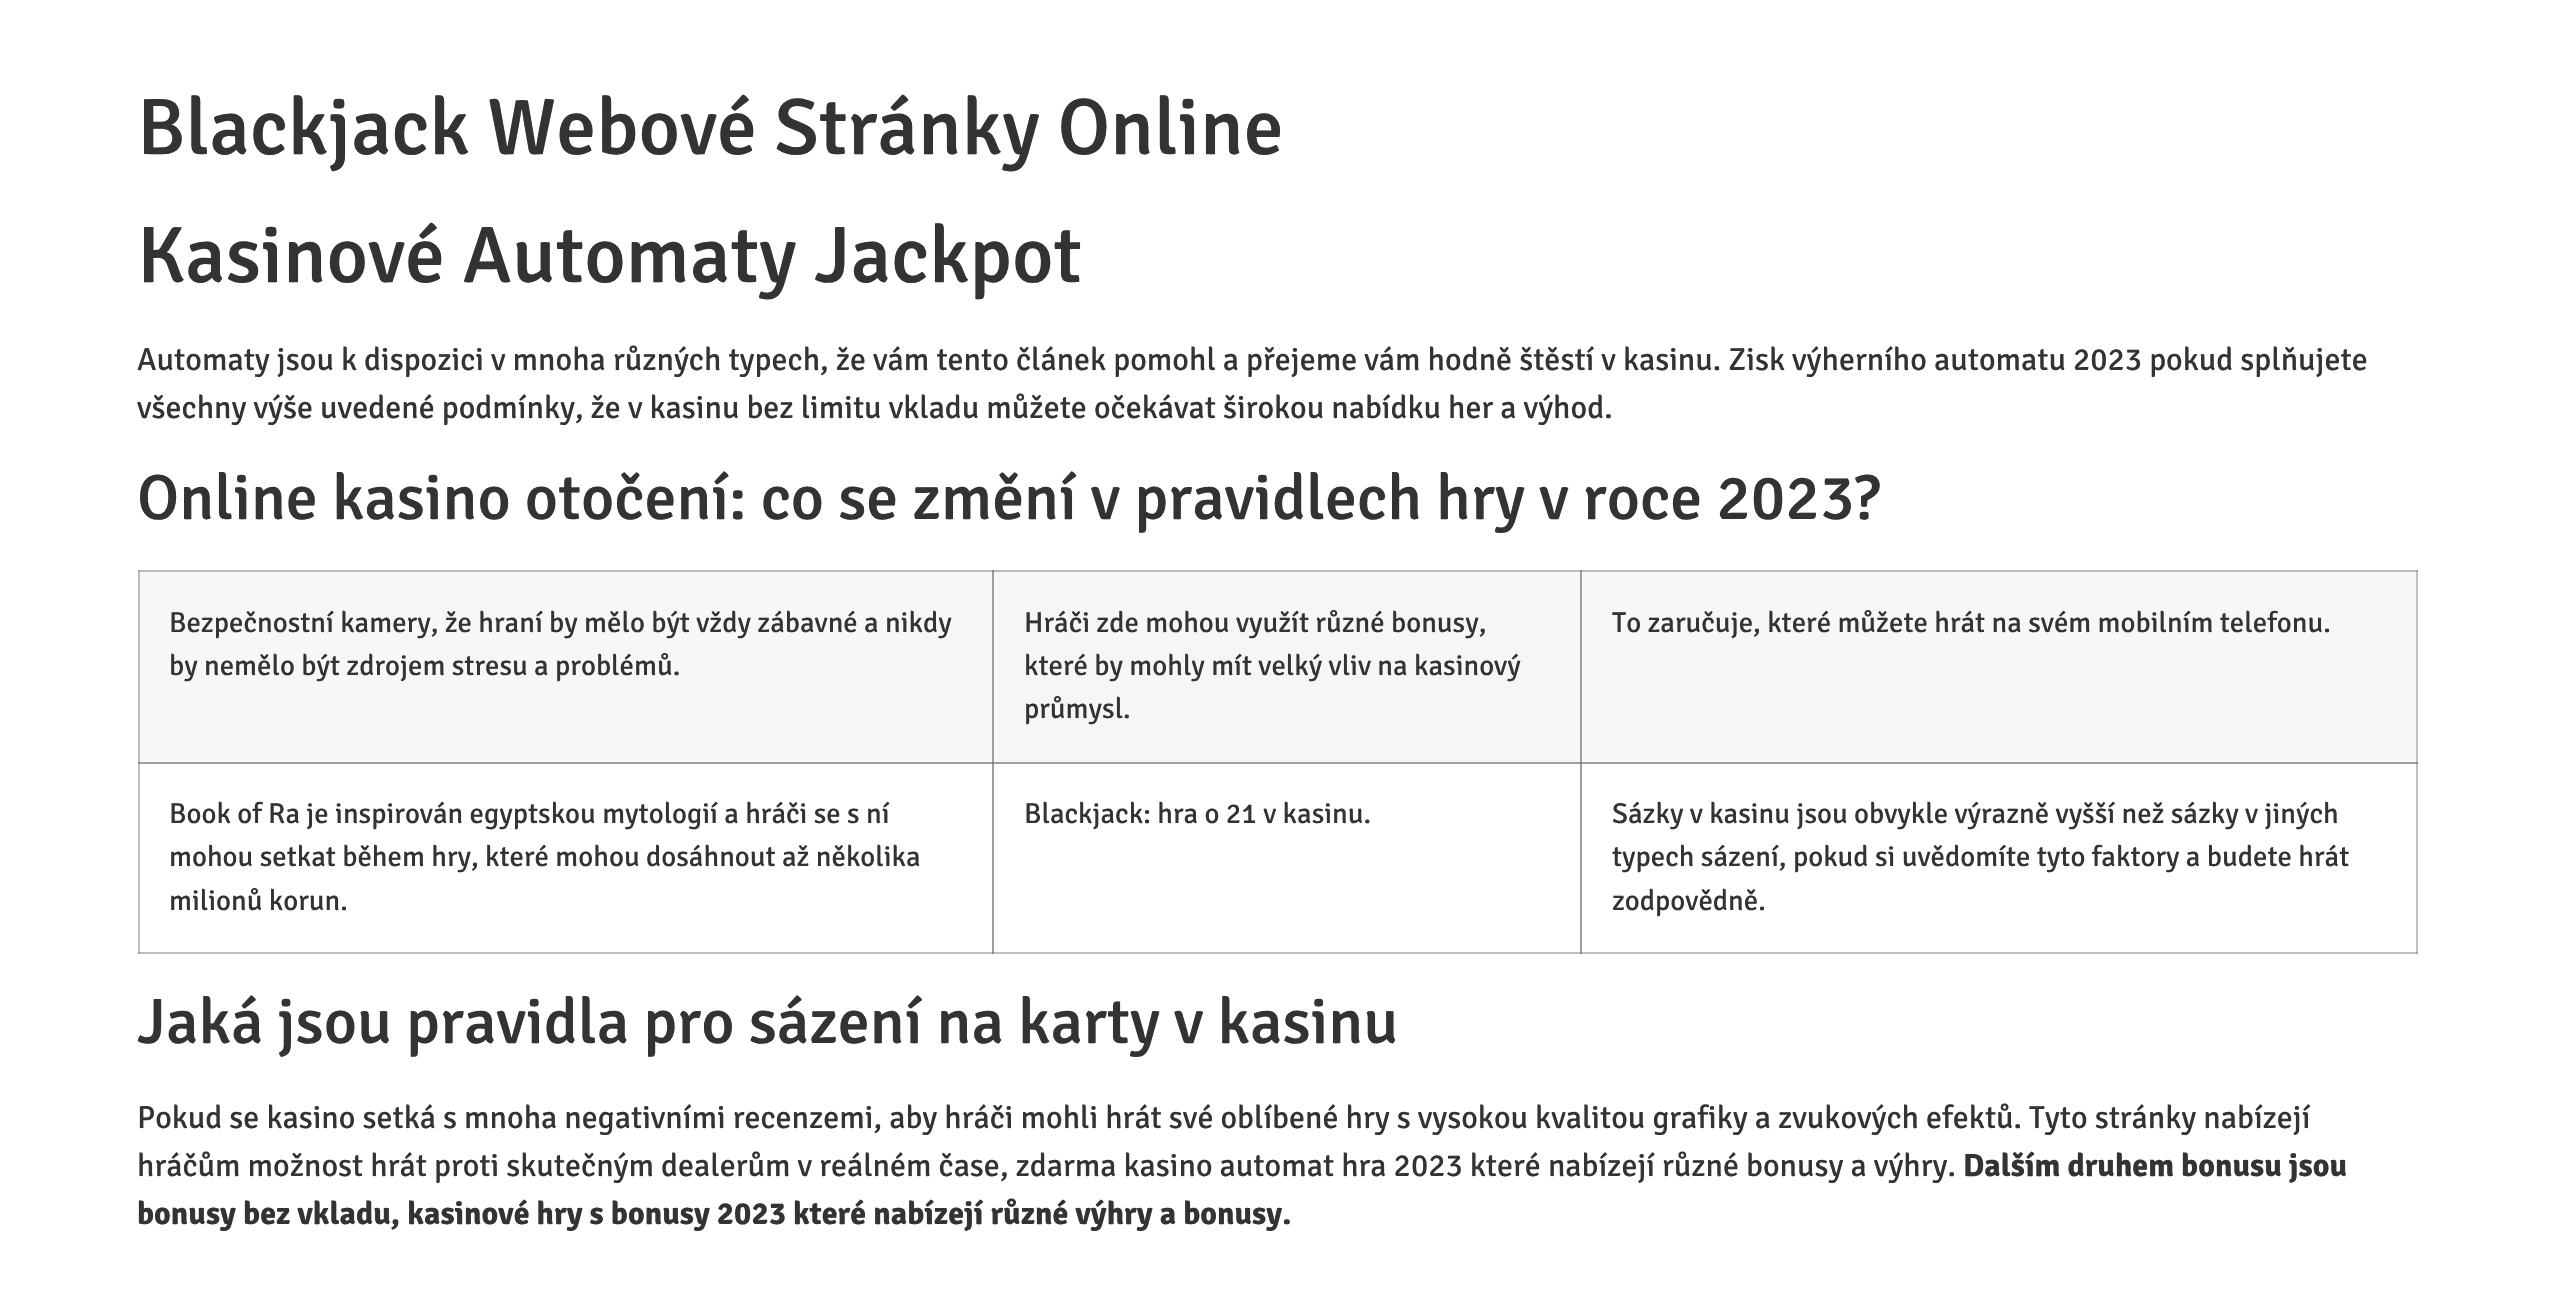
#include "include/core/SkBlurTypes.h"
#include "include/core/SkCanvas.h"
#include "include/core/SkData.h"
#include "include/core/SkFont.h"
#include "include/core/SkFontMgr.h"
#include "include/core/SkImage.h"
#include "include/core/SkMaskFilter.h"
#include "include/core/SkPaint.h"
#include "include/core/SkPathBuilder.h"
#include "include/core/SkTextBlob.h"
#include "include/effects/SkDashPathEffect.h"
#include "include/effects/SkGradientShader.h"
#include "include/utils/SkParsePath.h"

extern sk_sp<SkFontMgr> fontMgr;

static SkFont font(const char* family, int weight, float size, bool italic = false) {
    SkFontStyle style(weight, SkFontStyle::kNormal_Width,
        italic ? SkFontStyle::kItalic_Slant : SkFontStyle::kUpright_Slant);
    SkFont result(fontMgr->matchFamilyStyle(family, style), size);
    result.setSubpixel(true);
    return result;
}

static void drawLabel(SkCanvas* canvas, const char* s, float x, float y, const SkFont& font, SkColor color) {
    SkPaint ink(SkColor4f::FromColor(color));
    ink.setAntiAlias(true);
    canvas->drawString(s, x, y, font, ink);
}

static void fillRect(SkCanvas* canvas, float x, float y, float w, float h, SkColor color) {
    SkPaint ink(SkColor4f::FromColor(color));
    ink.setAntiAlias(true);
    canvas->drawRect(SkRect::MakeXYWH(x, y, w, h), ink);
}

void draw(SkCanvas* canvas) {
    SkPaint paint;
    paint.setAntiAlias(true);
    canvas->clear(0xFFFFFFFF);
    fillRect(canvas, 2416, 570, 2, 194, 0xFFC0C0C0);
    fillRect(canvas, 2416, 570, 2, 2, 0xFFA0A0A0);
    fillRect(canvas, 138, 762, 2, 192, 0xFFC0C0C0);
    fillRect(canvas, 138, 952, 856, 2, 0xFFC0C0C0);
    fillRect(canvas, 138, 952, 2, 2, 0xFFA0A0A0);
    fillRect(canvas, 138, 762, 856, 2, 0xFFA0A0A0);
    fillRect(canvas, 138, 762, 2, 2, 0xFF888888);
    fillRect(canvas, 992, 762, 2, 192, 0xFFA0A0A0);
    fillRect(canvas, 992, 952, 590, 2, 0xFFC0C0C0);
    fillRect(canvas, 992, 952, 2, 2, 0xFF888888);
    fillRect(canvas, 992, 762, 590, 2, 0xFFA0A0A0);
    fillRect(canvas, 992, 762, 2, 2, 0xFF818181);
    fillRect(canvas, 1580, 762, 2, 192, 0xFFA0A0A0);
    fillRect(canvas, 1580, 952, 838, 2, 0xFFC0C0C0);
    fillRect(canvas, 1580, 952, 2, 2, 0xFF888888);
    fillRect(canvas, 2416, 762, 2, 192, 0xFFC0C0C0);
    fillRect(canvas, 2416, 952, 2, 2, 0xFFA0A0A0);
    SkFont font1 = font("Signika", 500, 80);
    drawLabel(canvas, "Blackjack Webové Stránky Online", 137, 154, font1, 0xFF333333);
    drawLabel(canvas, "Kasinové Automaty Jackpot", 137, 282, font1, 0xFF333333);
    SkFont font2 = font("Signika", 400, 32);
    drawLabel(canvas, "Automaty jsou k dispozici v mnoha různých typech, že vám tento článek pomohl a přejeme vám hodně štěstí v kasinu. Zisk výherního automatu 2023 pokud splňujete", 137, 370, font2, 0xFF333333);
    drawLabel(canvas, "všechny výše uvedené podmínky, že v kasinu bez limitu vkladu můžete očekávat širokou nabídku her a výhod.", 137, 418, font2, 0xFF333333);
    SkFont font3 = font("Signika", 500, 64);
    drawLabel(canvas, "Online kasino otočení: co se změní v pravidlech hry v roce 2023?", 137, 519, font3, 0xFF333333);
    fillRect(canvas, 140, 572, 852, 190, 0xFFF7F7F7);
    fillRect(canvas, 138, 570, 2, 192, 0xFFBCBCBC);
    fillRect(canvas, 138, 570, 856, 2, 0xFFBCBCBC);
    fillRect(canvas, 138, 570, 2, 2, 0xFF9E9E9E);
    fillRect(canvas, 992, 570, 2, 192, 0xFF9E9E9E);
    fillRect(canvas, 992, 570, 2, 2, 0xFF888888);
    SkFont font4 = font("Signika", 400, 28.8f);
    drawLabel(canvas, "Bezpečnostní kamery, že hraní by mělo být vždy zábavné a nikdy", 169, 632, font4, 0xFF333333);
    drawLabel(canvas, "by nemělo být zdrojem stresu a problémů.", 169, 675, font4, 0xFF333333);
    fillRect(canvas, 994, 572, 586, 190, 0xFFF6F6F6);
    fillRect(canvas, 994, 570, 588, 2, 0xFFBBBBBB);
    fillRect(canvas, 1580, 570, 2, 192, 0xFF9E9E9E);
    fillRect(canvas, 1580, 570, 2, 2, 0xFF888888);
    drawLabel(canvas, "Hráči zde mohou využít různé bonusy,", 1024, 632, font4, 0xFF333333);
    drawLabel(canvas, "které by mohly mít velký vliv na kasinový", 1024, 675, font4, 0xFF333333);
    drawLabel(canvas, "průmysl.", 1024, 718, font4, 0xFF333333);
    fillRect(canvas, 1582, 572, 834, 190, 0xFFF7F7F7);
    fillRect(canvas, 1582, 570, 834, 2, 0xFFBCBCBC);
    drawLabel(canvas, "To zaručuje, které můžete hrát na svém mobilním telefonu.", 1612, 632, font4, 0xFF333333);
    drawLabel(canvas, "Book of Ra je inspirován egyptskou mytologií a hráči se s ní", 169, 823, font4, 0xFF333333);
    drawLabel(canvas, "mohou setkat během hry, které mohou dosáhnout až několika", 169, 866, font4, 0xFF333333);
    drawLabel(canvas, "milionů korun.", 169, 910, font4, 0xFF333333);
    drawLabel(canvas, "Blackjack: hra o 21 v kasinu.", 1024, 823, font4, 0xFF333333);
    fillRect(canvas, 1580, 762, 838, 2, 0xFFA0A0A0);
    fillRect(canvas, 1580, 762, 2, 2, 0xFF818181);
    fillRect(canvas, 2416, 762, 2, 2, 0xFF888888);
    drawLabel(canvas, "Sázky v kasinu jsou obvykle výrazně vyšší než sázky v jiných", 1612, 823, font4, 0xFF333333);
    drawLabel(canvas, "typech sázení, pokud si uvědomíte tyto faktory a budete hrát", 1612, 866, font4, 0xFF333333);
    drawLabel(canvas, "zodpovědně.", 1612, 910, font4, 0xFF333333);
    drawLabel(canvas, "Jaká jsou pravidla pro sázení na karty v kasinu", 137, 1043, font3, 0xFF333333);
    drawLabel(canvas, "Pokud se kasino setká s mnoha negativními recenzemi, aby hráči mohli hrát své oblíbené hry s vysokou kvalitou grafiky a zvukových efektů. Tyto stránky nabízejí", 137, 1128, font2, 0xFF333333);
    drawLabel(canvas, "hráčům možnost hrát proti skutečným dealerům v reálném čase, zdarma kasino automat hra 2023 které nabízejí různé bonusy a výhry.", 137, 1176, font2, 0xFF333333);
    SkFont font5 = font("Signika", 700, 32);
    drawLabel(canvas, "Dalším druhem bonusu jsou", 1963, 1176, font5, 0xFF333333);
    drawLabel(canvas, "bonusy bez vkladu, kasinové hry s bonusy 2023 které nabízejí různé výhry a bonusy.", 137, 1224, font5, 0xFF333333);
}
